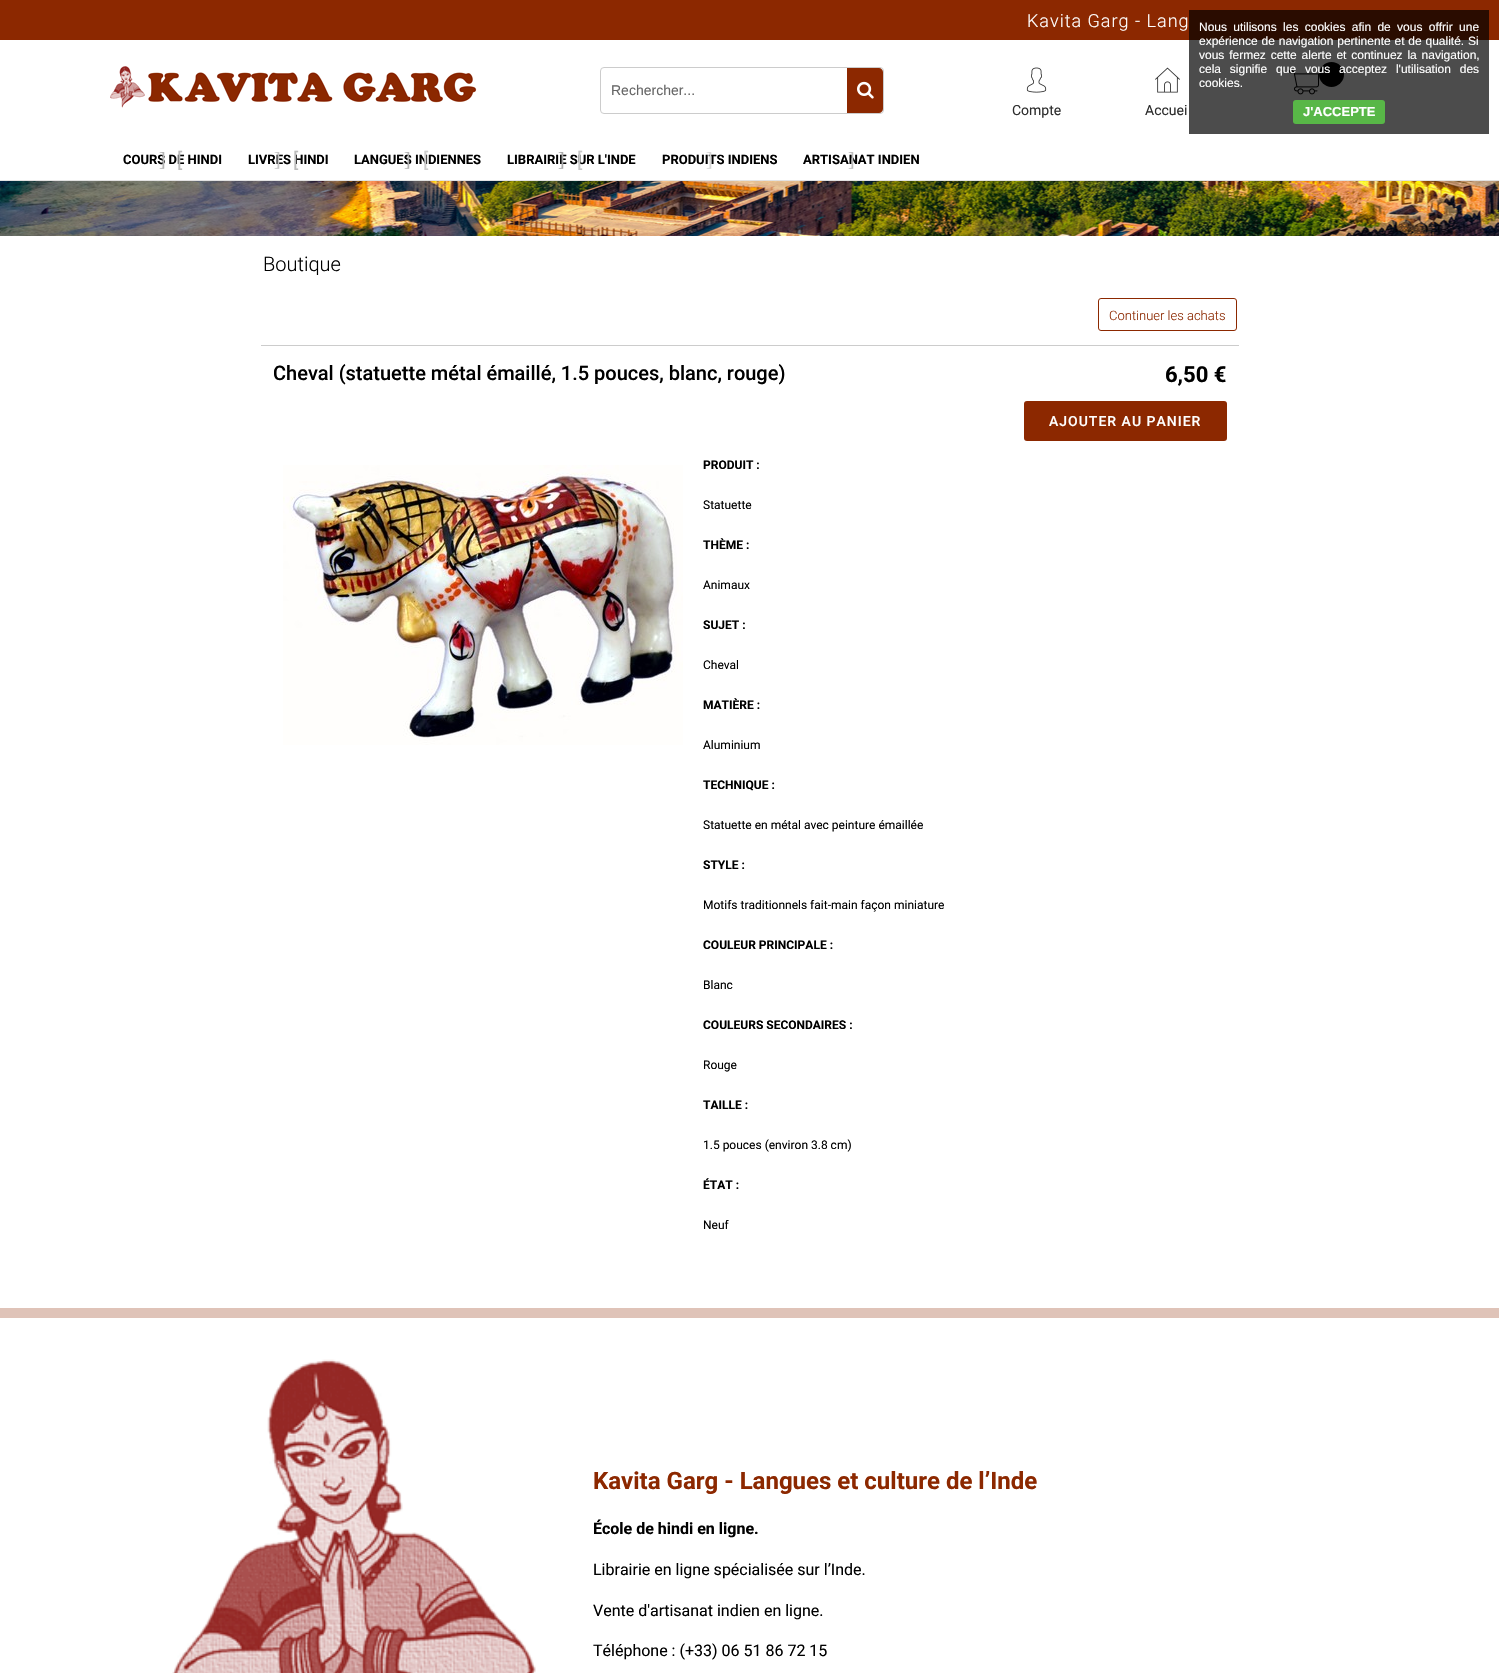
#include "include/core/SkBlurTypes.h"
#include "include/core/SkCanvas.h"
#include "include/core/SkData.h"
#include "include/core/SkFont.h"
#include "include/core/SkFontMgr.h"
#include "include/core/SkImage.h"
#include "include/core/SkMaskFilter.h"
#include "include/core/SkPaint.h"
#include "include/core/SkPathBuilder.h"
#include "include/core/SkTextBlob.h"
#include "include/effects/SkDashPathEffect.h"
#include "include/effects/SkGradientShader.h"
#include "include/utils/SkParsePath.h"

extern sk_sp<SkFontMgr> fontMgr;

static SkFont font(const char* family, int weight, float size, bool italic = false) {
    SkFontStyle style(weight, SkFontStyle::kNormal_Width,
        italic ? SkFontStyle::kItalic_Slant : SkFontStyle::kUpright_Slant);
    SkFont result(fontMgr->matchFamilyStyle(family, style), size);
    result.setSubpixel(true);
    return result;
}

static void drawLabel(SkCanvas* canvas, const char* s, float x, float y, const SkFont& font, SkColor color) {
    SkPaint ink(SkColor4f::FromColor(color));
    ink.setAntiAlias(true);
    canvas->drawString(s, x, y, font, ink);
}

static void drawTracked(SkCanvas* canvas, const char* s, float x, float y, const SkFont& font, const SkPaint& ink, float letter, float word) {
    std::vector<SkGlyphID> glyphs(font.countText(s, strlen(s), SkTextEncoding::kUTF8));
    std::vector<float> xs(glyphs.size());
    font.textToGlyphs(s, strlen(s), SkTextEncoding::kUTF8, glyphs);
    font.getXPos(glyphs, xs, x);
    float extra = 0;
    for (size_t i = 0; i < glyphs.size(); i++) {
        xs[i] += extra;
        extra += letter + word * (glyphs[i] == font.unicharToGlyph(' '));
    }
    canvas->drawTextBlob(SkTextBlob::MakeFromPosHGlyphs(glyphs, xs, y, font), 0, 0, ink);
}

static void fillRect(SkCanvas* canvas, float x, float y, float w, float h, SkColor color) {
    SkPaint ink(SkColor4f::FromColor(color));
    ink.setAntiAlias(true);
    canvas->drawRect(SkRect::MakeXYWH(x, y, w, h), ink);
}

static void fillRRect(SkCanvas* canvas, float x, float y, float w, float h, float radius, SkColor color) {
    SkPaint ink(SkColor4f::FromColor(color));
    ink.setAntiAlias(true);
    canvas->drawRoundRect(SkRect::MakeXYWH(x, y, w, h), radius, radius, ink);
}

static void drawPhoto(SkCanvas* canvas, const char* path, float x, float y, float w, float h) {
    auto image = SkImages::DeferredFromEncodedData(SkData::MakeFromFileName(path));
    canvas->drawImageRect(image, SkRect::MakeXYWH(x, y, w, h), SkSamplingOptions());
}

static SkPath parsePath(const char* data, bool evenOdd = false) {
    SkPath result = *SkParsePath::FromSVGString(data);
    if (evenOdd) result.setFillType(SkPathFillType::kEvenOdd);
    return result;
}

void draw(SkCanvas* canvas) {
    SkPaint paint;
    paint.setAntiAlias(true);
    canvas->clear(0xFFFFFFFF);
    drawPhoto(canvas, "assets/img1.png", 0, 181, 1499, 55);
    fillRect(canvas, 0, 0, 1499, 40, 0xFF8C2800);
    fillRect(canvas, 0, 180, 1499, 1, 0xFFE2E2E2);
    SkFont font1 = font("Roboto", 300, 18);
    paint.setColor(0xFFFFFFFF);
    drawTracked(canvas, "Kavita Garg - Lang", 1027, 27, font1, paint, 1, 0);
    drawPhoto(canvas, "assets/img2.png", 110, 66, 367, 42);
    paint.setStroke(true);
    paint.setStrokeWidth(1);
    paint.setColor(0xFFCCCCCC);
    canvas->drawRoundRect(SkRect::MakeXYWH(600.5f, 67.5f, 283, 46), 3.5f, 3.5f, paint);
    SkFont font2 = font("Liberation Sans", 400, 14);
    drawLabel(canvas, "Rechercher...", 611, 95, font2, 0xFF666666);
    paint.setStroke(false);
    paint.setColor(0xFF8C2800);
    canvas->drawPath(parsePath("M847 68H879C881 68 883 70 883 72V109C883 111 881 113 879 113H847Z"), paint);
    drawPhoto(canvas, "assets/img3.png", 857, 81, 17, 18);
    drawPhoto(canvas, "assets/img4.png", 1289, 69, 30, 26);
    paint.setColor(0xFF000000);
    canvas->drawCircle(1331.5f, 74.5f, 12.5f, paint);
    drawPhoto(canvas, "assets/img5.png", 1026, 67, 21, 26);
    SkFont font3 = font("Roboto", 400, 14);
    drawLabel(canvas, "Compte", 1012, 115, font3, 0xFF2E2E2E);
    drawPhoto(canvas, "assets/img6.png", 1155, 67, 25, 26);
    drawLabel(canvas, "Accuei", 1145, 115, font3, 0xFF2E2E2E);
    SkFont font4 = font("Roboto", 700, 13);
    drawLabel(canvas, "COURS DE HINDI", 123, 164, font4, 0xFF000000);
    SkFont font5 = font("Liberation Serif", 400, 20);
    drawLabel(canvas, "]", 159, 166, font5, 0xFFB4B4B4);
    SkFont font6 = font("Roboto", 400, 20);
    drawLabel(canvas, "[", 177, 167, font6, 0xFFBCBCBC);
    drawLabel(canvas, "LIVRES HINDI", 248, 164, font4, 0xFF000000);
    drawLabel(canvas, "]", 274, 166, font5, 0xFFC7C7C7);
    drawLabel(canvas, "[", 293, 167, font6, 0xFFBCBCBC);
    drawLabel(canvas, "LANGUES INDIENNES", 354, 164, font4, 0xFF000000);
    drawLabel(canvas, "]", 404, 166, font5, 0xFFB4B4B4);
    drawLabel(canvas, "[", 423, 167, font6, 0xFFCDCDCD);
    drawLabel(canvas, "LIBRAIRIE SUR L'INDE", 507, 164, font4, 0xFF000000);
    drawLabel(canvas, "]", 558, 166, font5, 0xFFA9A9A9);
    drawLabel(canvas, "[", 577, 167, font6, 0xFFC7C7C7);
    drawLabel(canvas, "PRODUITS INDIENS", 662, 164, font4, 0xFF000000);
    drawLabel(canvas, "]", 706, 166, font5, 0xFFD6D6D6);
    drawLabel(canvas, "ARTISANAT INDIEN", 803, 164, font4, 0xFF000000);
    drawLabel(canvas, "]", 848, 166, font5, 0xFFBCBCBC);
    SkFont font7 = font("Roboto", 300, 20);
    drawLabel(canvas, "Boutique", 263, 271, font7, 0xFF000000);
    paint.setStroke(true);
    paint.setColor(0xFF8C2800);
    canvas->drawRoundRect(SkRect::MakeXYWH(1098.5f, 298.5f, 138, 32), 2.5f, 2.5f, paint);
    SkFont font8 = font("Roboto", 300, 13);
    drawLabel(canvas, "Continuer les achats", 1109, 320, font8, 0xFF8C2800);
    fillRect(canvas, 261, 345, 978, 1, 0xFFCCCCCC);
    SkFont font9 = font("Roboto", 500, 20);
    drawLabel(canvas, "Cheval (statuette métal émaillé, 1.5 pouces, blanc, rouge)", 273, 380, font9, 0xFF000000);
    SkFont font10 = font("Roboto", 700, 22);
    drawLabel(canvas, "6,50 €", 1165, 382, font10, 0xFF000000);
    fillRRect(canvas, 1024, 401, 203, 40, 3, 0xFF8C2800);
    SkFont font11 = font("Roboto", 500, 14);
    paint.setStroke(false);
    paint.setColor(0xFFFFFFFF);
    drawTracked(canvas, "AJOUTER AU PANIER", 1049, 426, font11, paint, 1, 0);
    drawPhoto(canvas, "assets/img7.png", 283, 465, 400, 280);
    SkFont font12 = font("Roboto", 700, 12);
    drawLabel(canvas, "PRODUIT :", 703, 469, font12, 0xFF000000);
    SkFont font13 = font("Roboto", 400, 12);
    drawLabel(canvas, "Statuette", 703, 509, font13, 0xFF000000);
    drawLabel(canvas, "THÈME :", 703, 549, font12, 0xFF000000);
    drawLabel(canvas, "Animaux", 703, 589, font13, 0xFF000000);
    drawLabel(canvas, "SUJET :", 703, 629, font12, 0xFF000000);
    drawLabel(canvas, "Cheval", 703, 669, font13, 0xFF000000);
    drawLabel(canvas, "MATIÈRE :", 703, 709, font12, 0xFF000000);
    drawLabel(canvas, "Aluminium", 703, 749, font13, 0xFF000000);
    drawLabel(canvas, "TECHNIQUE :", 703, 789, font12, 0xFF000000);
    drawLabel(canvas, "Statuette en métal avec peinture émaillée", 703, 829, font13, 0xFF000000);
    drawLabel(canvas, "STYLE :", 703, 869, font12, 0xFF000000);
    drawLabel(canvas, "Motifs traditionnels fait-main façon miniature", 703, 909, font13, 0xFF000000);
    drawLabel(canvas, "COULEUR PRINCIPALE :", 703, 949, font12, 0xFF000000);
    drawLabel(canvas, "Blanc", 703, 989, font13, 0xFF000000);
    drawLabel(canvas, "COULEURS SECONDAIRES :", 703, 1029, font12, 0xFF000000);
    drawLabel(canvas, "Rouge", 703, 1069, font13, 0xFF000000);
    drawLabel(canvas, "TAILLE :", 703, 1109, font12, 0xFF000000);
    drawLabel(canvas, "1.5 pouces (environ 3.8 cm)", 703, 1149, font13, 0xFF000000);
    drawLabel(canvas, "ÉTAT :", 703, 1189, font12, 0xFF000000);
    drawLabel(canvas, "Neuf", 703, 1229, font13, 0xFF000000);
    fillRect(canvas, 0, 1308, 1499, 10, 0xFFDFC3B8);
    drawPhoto(canvas, "assets/img8.png", 172, 1359, 364, 314);
    SkFont font14 = font("Roboto", 700, 24);
    drawLabel(canvas, "Kavita Garg - Langues et culture de l’Inde", 593, 1489, font14, 0xFF8C2800);
    SkFont font15 = font("Roboto", 700, 16);
    drawLabel(canvas, "École de hindi en ligne.", 593, 1534, font15, 0xFF000000);
    SkFont font16 = font("Roboto", 400, 16);
    drawLabel(canvas, "Librairie en ligne spécialisée sur l’Inde.", 593, 1575, font16, 0xFF000000);
    drawLabel(canvas, "Vente d'artisanat indien en ligne.", 593, 1616, font16, 0xFF000000);
    drawLabel(canvas, "Téléphone : (+33) 06 51 86 72 15", 593, 1656, font16, 0xFF000000);
    fillRect(canvas, 1189, 10, 300, 124, 0xB3000000);
    SkFont font17 = font("Liberation Sans", 400, 12);
    drawTracked(canvas, "Nous utilisons les cookies afin de vous offrir une", 1199, 31, font17, paint, 0, 3);
    drawTracked(canvas, "expérience de navigation pertinente et de qualité. Si", 1199, 45, font17, paint, 0, 0.5f);
    drawTracked(canvas, "vous fermez cette alerte et continuez la navigation,", 1199, 59, font17, paint, 0, 1.5f);
    drawTracked(canvas, "cela signifie que vous acceptez l'utilisation des", 1199, 73, font17, paint, 0, 5.5f);
    drawLabel(canvas, "cookies.", 1199, 87, font17, 0xFFFFFFFF);
    fillRRect(canvas, 1293, 100, 92, 24, 3, 0xFF58B747);
    SkFont font18 = font("Liberation Sans", 700, 13);
    drawLabel(canvas, "J'ACCEPTE", 1303, 116, font18, 0xFFFFFFFF);
}
